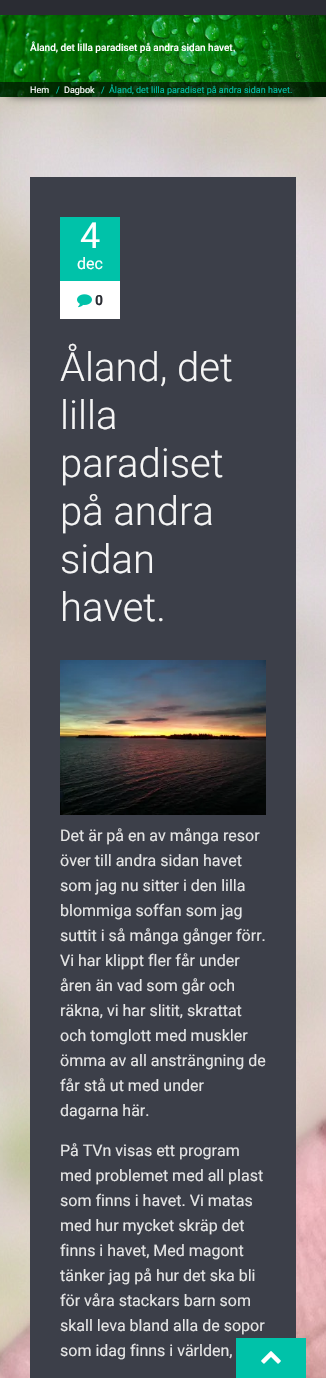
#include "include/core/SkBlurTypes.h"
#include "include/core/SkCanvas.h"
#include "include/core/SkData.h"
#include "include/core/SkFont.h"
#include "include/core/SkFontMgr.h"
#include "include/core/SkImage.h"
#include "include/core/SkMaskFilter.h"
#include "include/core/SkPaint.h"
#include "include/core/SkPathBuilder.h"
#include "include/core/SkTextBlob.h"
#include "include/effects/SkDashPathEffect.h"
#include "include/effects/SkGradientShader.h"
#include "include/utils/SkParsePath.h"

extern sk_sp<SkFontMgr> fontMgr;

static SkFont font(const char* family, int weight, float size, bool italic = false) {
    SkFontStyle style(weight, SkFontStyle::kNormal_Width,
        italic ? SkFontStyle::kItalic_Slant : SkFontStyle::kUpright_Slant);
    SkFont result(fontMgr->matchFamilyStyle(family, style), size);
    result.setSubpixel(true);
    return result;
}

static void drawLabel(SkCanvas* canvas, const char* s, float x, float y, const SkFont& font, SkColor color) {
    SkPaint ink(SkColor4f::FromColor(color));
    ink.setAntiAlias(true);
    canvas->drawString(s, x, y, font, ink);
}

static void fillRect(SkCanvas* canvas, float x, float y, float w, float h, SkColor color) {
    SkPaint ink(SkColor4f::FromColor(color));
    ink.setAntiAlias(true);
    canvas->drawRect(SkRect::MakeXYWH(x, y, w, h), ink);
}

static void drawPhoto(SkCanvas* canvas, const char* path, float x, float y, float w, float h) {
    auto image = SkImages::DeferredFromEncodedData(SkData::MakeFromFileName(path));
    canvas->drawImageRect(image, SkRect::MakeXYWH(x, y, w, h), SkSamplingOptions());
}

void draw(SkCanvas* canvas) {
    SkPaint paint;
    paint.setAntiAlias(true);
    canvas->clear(0xFFFFFFFF);
    drawPhoto(canvas, "assets/img1.png", 0, 97, 326, 1281);
    fillRect(canvas, 0, 0, 326, 15, 0xFF2A2C33);
    paint.setColor(0xFF000000);
    paint.setMaskFilter(SkMaskFilter::MakeBlur(kNormal_SkBlurStyle, 5));
    canvas->drawRect(SkRect::MakeXYWH(10, 32, 306, 62), paint);
    paint.setMaskFilter(nullptr);
    drawPhoto(canvas, "assets/img2.png", 0, 15, 326, 82);
    SkFont font1 = font("Roboto", 500, 10);
    drawLabel(canvas, "Åland, det lilla paradiset på andra sidan havet.", 30, 51, font1, 0xFFFFFFFF);
    fillRect(canvas, 0, 82, 326, 15, 0x99000000);
    SkFont font2 = font("Roboto", 400, 9);
    drawLabel(canvas, "Hem", 30, 93, font2, 0xFFFFFFFF);
    drawLabel(canvas, "/", 56, 93, font2, 0xFF00C2A9);
    drawLabel(canvas, "Dagbok", 64, 93, font2, 0xFFFFFFFF);
    drawLabel(canvas, "/", 101, 93, font2, 0xFF00C2A9);
    drawLabel(canvas, "Åland, det lilla paradiset på andra sidan havet.", 109, 93, font2, 0xFF00C2A9);
    fillRect(canvas, 30, 177, 266, 1201, 0xFF3C3F49);
    fillRect(canvas, 60, 281, 60, 38, 0xFFFFFFFF);
    fillRect(canvas, 60, 217, 60, 64, 0xFF00C2A9);
    SkFont font3 = font("Roboto", 400, 36);
    drawLabel(canvas, "4", 80, 248, font3, 0xFFFFFFFF);
    SkFont font4 = font("Roboto", 400, 16);
    drawLabel(canvas, "dec", 77, 269, font4, 0xFFFFFFFF);
    drawPhoto(canvas, "assets/img3.png", 77, 294, 15, 14);
    SkFont font5 = font("Roboto", 700, 14);
    drawLabel(canvas, "0", 95, 305, font5, 0xFF2A2C33);
    SkFont font6 = font("Roboto", 300, 40);
    drawLabel(canvas, "Åland, det", 60, 381, font6, 0xFFF5F5F5);
    drawLabel(canvas, "lilla", 60, 429, font6, 0xFFF5F5F5);
    drawLabel(canvas, "paradiset", 60, 477, font6, 0xFFF5F5F5);
    drawLabel(canvas, "på andra", 60, 525, font6, 0xFFF5F5F5);
    drawLabel(canvas, "sidan", 60, 573, font6, 0xFFF5F5F5);
    drawLabel(canvas, "havet.", 60, 621, font6, 0xFFF5F5F5);
    drawPhoto(canvas, "assets/img4.png", 60, 660, 206, 155);
    drawLabel(canvas, "Det är på en av många resor", 60, 841, font4, 0xFFE5E5E5);
    drawLabel(canvas, "över till andra sidan havet", 60, 866, font4, 0xFFE5E5E5);
    drawLabel(canvas, "som jag nu sitter i den lilla", 60, 891, font4, 0xFFE5E5E5);
    drawLabel(canvas, "blommiga soffan som jag", 60, 916, font4, 0xFFE5E5E5);
    drawLabel(canvas, "suttit i så många gånger förr.", 60, 941, font4, 0xFFE5E5E5);
    drawLabel(canvas, "Vi har klippt fler får under", 60, 966, font4, 0xFFE5E5E5);
    drawLabel(canvas, "åren än vad som går och", 60, 991, font4, 0xFFE5E5E5);
    drawLabel(canvas, "räkna, vi har slitit, skrattat", 60, 1016, font4, 0xFFE5E5E5);
    drawLabel(canvas, "och tomglott med muskler", 60, 1041, font4, 0xFFE5E5E5);
    drawLabel(canvas, "ömma av all ansträngning de", 60, 1066, font4, 0xFFE5E5E5);
    drawLabel(canvas, "får stå ut med under", 60, 1091, font4, 0xFFE5E5E5);
    drawLabel(canvas, "dagarna här.", 60, 1116, font4, 0xFFE5E5E5);
    drawLabel(canvas, "På TVn visas ett program", 60, 1156, font4, 0xFFE5E5E5);
    drawLabel(canvas, "med problemet med all plast", 60, 1181, font4, 0xFFE5E5E5);
    drawLabel(canvas, "som finns i havet. Vi matas", 60, 1206, font4, 0xFFE5E5E5);
    drawLabel(canvas, "med hur mycket skräp det", 60, 1231, font4, 0xFFE5E5E5);
    drawLabel(canvas, "finns i havet, Med magont", 60, 1256, font4, 0xFFE5E5E5);
    drawLabel(canvas, "tänker jag på hur det ska bli", 60, 1281, font4, 0xFFE5E5E5);
    drawLabel(canvas, "för våra stackars barn som", 60, 1306, font4, 0xFFE5E5E5);
    drawLabel(canvas, "skall leva bland alla de sopor", 60, 1331, font4, 0xFFE5E5E5);
    drawLabel(canvas, "som idag finns i världen,", 60, 1356, font4, 0xFFE5E5E5);
    fillRect(canvas, 236, 1338, 70, 40, 0xFF00C2A9);
    drawPhoto(canvas, "assets/img5.png", 261, 1351, 20, 13);
}
